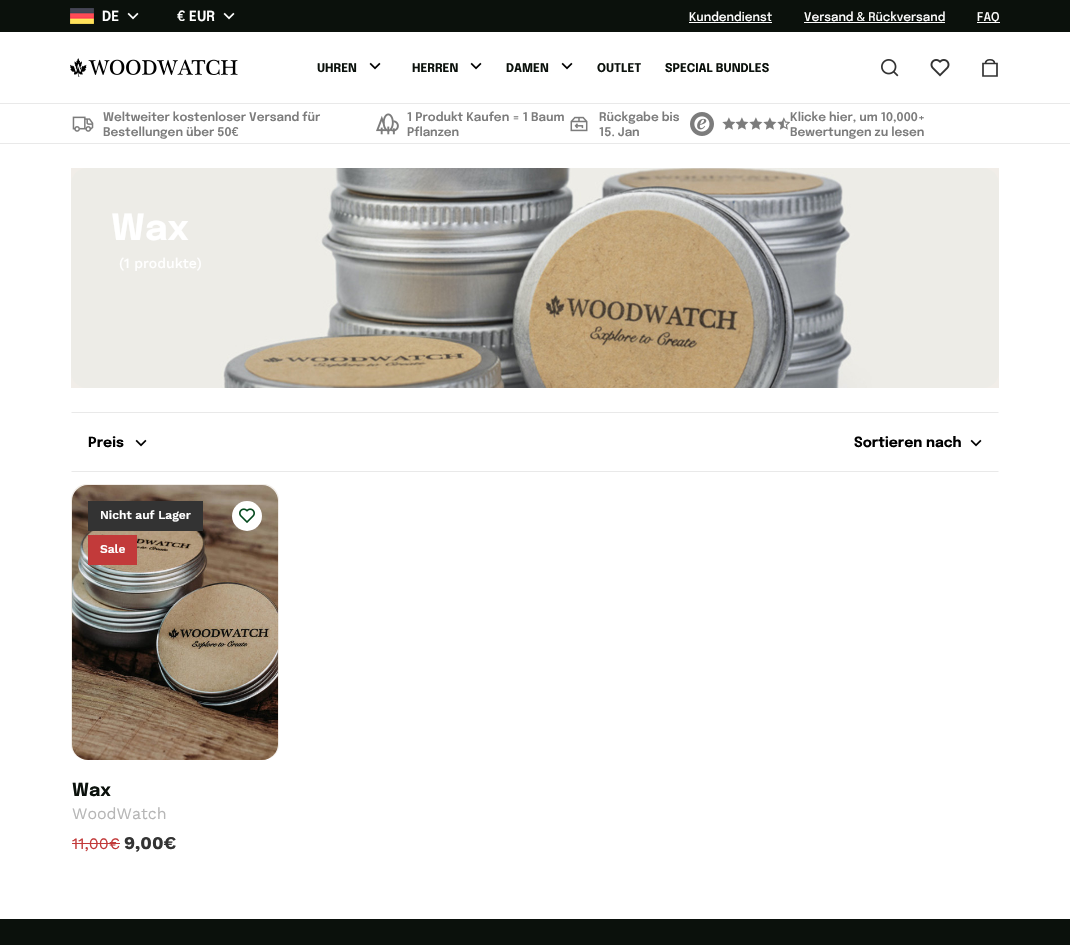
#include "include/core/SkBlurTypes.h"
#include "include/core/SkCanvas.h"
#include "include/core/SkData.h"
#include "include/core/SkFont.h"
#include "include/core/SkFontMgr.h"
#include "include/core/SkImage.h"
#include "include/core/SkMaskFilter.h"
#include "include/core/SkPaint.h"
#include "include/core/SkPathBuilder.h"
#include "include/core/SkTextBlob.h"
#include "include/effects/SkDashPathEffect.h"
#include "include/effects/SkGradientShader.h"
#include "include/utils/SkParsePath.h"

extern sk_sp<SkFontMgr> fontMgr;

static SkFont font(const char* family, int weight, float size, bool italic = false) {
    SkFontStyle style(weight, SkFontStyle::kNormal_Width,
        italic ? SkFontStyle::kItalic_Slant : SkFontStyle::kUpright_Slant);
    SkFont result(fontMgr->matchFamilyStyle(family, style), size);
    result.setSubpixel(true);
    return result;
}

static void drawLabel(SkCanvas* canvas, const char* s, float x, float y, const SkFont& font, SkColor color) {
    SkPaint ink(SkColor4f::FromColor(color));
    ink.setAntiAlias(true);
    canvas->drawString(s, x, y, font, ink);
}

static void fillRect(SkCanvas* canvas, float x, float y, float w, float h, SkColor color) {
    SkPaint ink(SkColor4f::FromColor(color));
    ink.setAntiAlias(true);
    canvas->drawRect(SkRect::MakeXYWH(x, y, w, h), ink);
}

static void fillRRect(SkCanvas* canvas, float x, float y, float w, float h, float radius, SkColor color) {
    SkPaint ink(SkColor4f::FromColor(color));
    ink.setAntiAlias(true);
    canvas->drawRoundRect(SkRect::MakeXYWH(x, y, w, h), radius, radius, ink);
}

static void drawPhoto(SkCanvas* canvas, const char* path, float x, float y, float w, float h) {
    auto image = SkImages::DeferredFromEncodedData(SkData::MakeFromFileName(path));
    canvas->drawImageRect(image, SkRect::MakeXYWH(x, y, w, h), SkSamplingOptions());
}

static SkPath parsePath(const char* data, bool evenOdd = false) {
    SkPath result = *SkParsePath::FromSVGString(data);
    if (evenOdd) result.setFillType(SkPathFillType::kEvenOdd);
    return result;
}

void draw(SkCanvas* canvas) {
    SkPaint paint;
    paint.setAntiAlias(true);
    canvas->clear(0xFFFFFFFF);
    fillRect(canvas, 0, 0, 1070, 32, 0xFF0B110C);
    drawPhoto(canvas, "assets/img1.png", 70, 8, 24, 16);
    SkFont font1 = font("Epilogue", 600, 14);
    drawLabel(canvas, "DE", 102, 21, font1, 0xFFFFFFFF);
    drawPhoto(canvas, "assets/img2.png", 127, 12, 12, 8);
    drawLabel(canvas, "€ EUR", 177, 21, font1, 0xFFFFFFFF);
    drawPhoto(canvas, "assets/img2.png", 223, 12, 12, 8);
    SkFont font2 = font("Epilogue", 500, 12);
    drawLabel(canvas, "Kundendienst", 689, 21, font2, 0xFFFFFFFF);
    fillRect(canvas, 689, 22, 83, 1, 0xFFFFFFFF);
    drawLabel(canvas, "Versand & Rückversand", 804, 21, font2, 0xFFFFFFFF);
    fillRect(canvas, 804, 22, 141, 1, 0xFFFFFFFF);
    fillRect(canvas, 977, 22, 23, 1, 0xFFFFFFFF);
    drawLabel(canvas, "FAQ", 977, 21, font2, 0xFFFFFFFF);
    fillRect(canvas, 0, 103, 1070, 1, 0xFFE9E9E9);
    drawPhoto(canvas, "assets/img3.png", 70, 58, 168, 19);
    SkFont font3 = font("Epilogue", 700, 12);
    drawLabel(canvas, "UHREN", 317, 72, font3, 0xFF0B110C);
    drawPhoto(canvas, "assets/img4.png", 369, 62, 12, 8);
    drawLabel(canvas, "HERREN", 412, 72, font3, 0xFF0B110C);
    drawPhoto(canvas, "assets/img4.png", 470, 62, 12, 8);
    drawLabel(canvas, "DAMEN", 506, 72, font3, 0xFF0B110C);
    drawPhoto(canvas, "assets/img4.png", 561, 62, 12, 8);
    drawLabel(canvas, "OUTLET", 597, 72, font3, 0xFF0B110C);
    drawLabel(canvas, "SPECIAL BUNDLES", 665, 72, font3, 0xFF0B110C);
    drawPhoto(canvas, "assets/img5.png", 881, 59, 18, 18);
    drawPhoto(canvas, "assets/img6.png", 930, 59, 20, 18);
    paint.setStroke(true);
    paint.setStrokeWidth(1.7f);
    paint.setStrokeCap(SkPaint::kSquare_Cap);
    paint.setColor(0xFF333333);
    canvas->drawPath(parsePath("M997 63.5H983V76H997ZM985.5 63.5C985.5 58.5 994.5 58.5 994.5 63.5"), paint);
    fillRect(canvas, 0, 143, 1070, 1, 0xFFE9E9E9);
    drawPhoto(canvas, "assets/img7.png", 72, 116, 22, 16);
    SkFont font4 = font("Epilogue", 600, 12);
    drawLabel(canvas, "Weltweiter kostenloser Versand für", 103, 121, font4, 0xFF7C7C7C);
    drawLabel(canvas, "Bestellungen über 50€", 103, 136, font4, 0xFF7C7C7C);
    drawPhoto(canvas, "assets/img8.png", 376, 113, 23, 22);
    drawLabel(canvas, "1 Produkt Kaufen = 1 Baum", 407, 121, font4, 0xFF7C7C7C);
    drawLabel(canvas, "Pflanzen", 407, 136, font4, 0xFF7C7C7C);
    drawPhoto(canvas, "assets/img9.png", 570, 116, 18, 16);
    drawLabel(canvas, "Rückgabe bis", 599, 121, font4, 0xFF7C7C7C);
    drawLabel(canvas, "15. Jan", 599, 136, font4, 0xFF7C7C7C);
    drawPhoto(canvas, "assets/img10.png", 690, 112, 24, 24);
    drawPhoto(canvas, "assets/img11.png", 722, 117, 13, 13);
    drawPhoto(canvas, "assets/img12.png", 735, 117, 14, 13);
    drawPhoto(canvas, "assets/img12.png", 749, 117, 14, 13);
    drawPhoto(canvas, "assets/img12.png", 763, 117, 14, 13);
    drawPhoto(canvas, "assets/img13.png", 777, 117, 13, 13);
    drawLabel(canvas, "Klicke hier, um 10,000+", 790, 121, font4, 0xFF7C7C7C);
    drawLabel(canvas, "Bewertungen zu lesen", 790, 136, font4, 0xFF7C7C7C);
    fillRect(canvas, 71, 168, 928, 220, 0xFFF1EDE8);
    drawPhoto(canvas, "assets/img14.png", 71, 168, 928, 220);
    SkFont font5 = font("Epilogue", 700, 36);
    drawLabel(canvas, "Wax", 111, 240, font5, 0xFFFFFFFF);
    SkFont font6 = font("Work Sans", 500, 14);
    drawLabel(canvas, "(1 produkte)", 119, 268, font6, 0xFFFFFFFF);
    paint.setStroke(false);
    paint.setColor(0xFFE9E9E9);
    canvas->drawPath(parsePath("M71 412H999L998 413H72Z"), paint);
    canvas->drawPath(parsePath("M999 472H71L72 471H998Z"), paint);
    SkFont font7 = font("Epilogue", 700, 14);
    drawLabel(canvas, "Preis", 88, 447, font7, 0xFF000000);
    drawPhoto(canvas, "assets/img4.png", 135, 439, 12, 8);
    drawLabel(canvas, "Sortieren nach", 854, 447, font7, 0xFF000000);
    drawPhoto(canvas, "assets/img4.png", 970, 439, 12, 8);
    fillRRect(canvas, 71, 484, 208, 276, 16, 0xFFF1EDE8);
    drawPhoto(canvas, "assets/img15.png", 72, 485, 206, 275);
    fillRect(canvas, 88, 501, 115, 30, 0xFF333333);
    SkFont font8 = font("Work Sans", 600, 12);
    drawLabel(canvas, "Nicht auf Lager", 100, 519, font8, 0xFFFFFFFF);
    fillRect(canvas, 88, 535, 49, 30, 0xFFC23A3A);
    drawLabel(canvas, "Sale", 100, 553, font8, 0xFFFFFFFF);
    paint.setColor(0xFFFFFFFF);
    canvas->drawCircle(247, 516, 15, paint);
    drawPhoto(canvas, "assets/img16.png", 239, 508, 16, 15);
    SkFont font9 = font("Epilogue", 700, 18);
    drawLabel(canvas, "Wax", 72, 796, font9, 0xFF0B110C);
    SkFont font10 = font("Work Sans", 400, 16);
    drawLabel(canvas, "WoodWatch", 72, 819, font10, 0xFFB6B6B6);
    drawLabel(canvas, "11,00€", 72, 849, font10, 0xFFC23A3A);
    fillRect(canvas, 72, 843, 48, 1, 0xFFC23A3A);
    SkFont font11 = font("Work Sans", 700, 18);
    drawLabel(canvas, "9,00€", 124, 849, font11, 0xFF333333);
    fillRect(canvas, 0, 919, 1070, 26, 0xFF0B110C);
}
